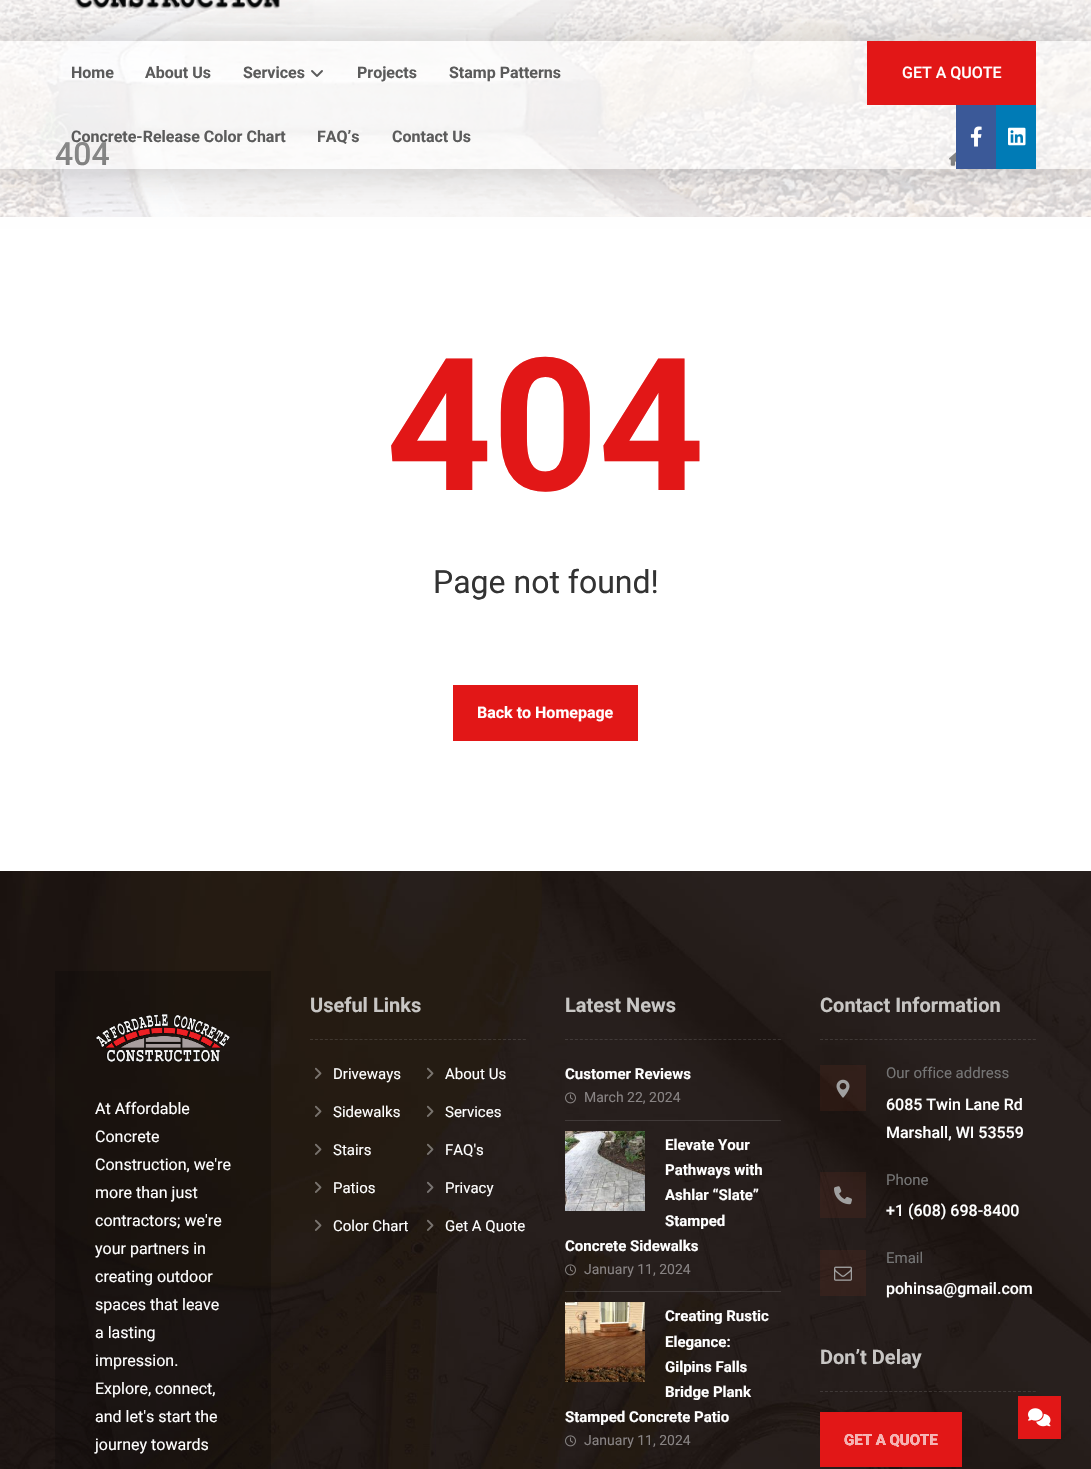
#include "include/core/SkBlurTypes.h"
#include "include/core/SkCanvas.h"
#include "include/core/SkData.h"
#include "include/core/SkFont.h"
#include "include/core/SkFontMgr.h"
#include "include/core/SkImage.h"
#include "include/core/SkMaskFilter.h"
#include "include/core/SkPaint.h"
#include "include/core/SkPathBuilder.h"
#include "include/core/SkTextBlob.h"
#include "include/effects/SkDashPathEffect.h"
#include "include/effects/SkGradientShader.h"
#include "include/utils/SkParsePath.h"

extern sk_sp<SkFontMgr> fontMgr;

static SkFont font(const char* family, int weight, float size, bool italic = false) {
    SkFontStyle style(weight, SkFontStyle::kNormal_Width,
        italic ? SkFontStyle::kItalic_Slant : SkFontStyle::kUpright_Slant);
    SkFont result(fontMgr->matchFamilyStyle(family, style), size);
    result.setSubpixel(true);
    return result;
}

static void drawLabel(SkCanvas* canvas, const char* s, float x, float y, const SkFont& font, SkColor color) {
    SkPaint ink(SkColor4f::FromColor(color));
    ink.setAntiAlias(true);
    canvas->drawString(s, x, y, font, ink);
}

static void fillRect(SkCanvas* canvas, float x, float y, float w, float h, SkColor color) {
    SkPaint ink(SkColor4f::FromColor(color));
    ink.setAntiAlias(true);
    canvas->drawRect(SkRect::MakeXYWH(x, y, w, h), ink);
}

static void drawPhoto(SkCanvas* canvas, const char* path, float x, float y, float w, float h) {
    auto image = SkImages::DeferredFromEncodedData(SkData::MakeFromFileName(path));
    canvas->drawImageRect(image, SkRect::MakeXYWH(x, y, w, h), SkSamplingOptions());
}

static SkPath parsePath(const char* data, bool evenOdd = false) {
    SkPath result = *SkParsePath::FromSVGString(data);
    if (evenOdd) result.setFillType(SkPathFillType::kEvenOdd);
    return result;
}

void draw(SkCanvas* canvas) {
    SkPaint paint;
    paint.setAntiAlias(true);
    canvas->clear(0xFFFFFFFF);
    drawPhoto(canvas, "assets/img5.png", 0, 0, 1091, 217);
    SkFont font1 = font("Roboto", 500, 32);
    drawLabel(canvas, "404", 55, 165, font1, 0xFF000000);
    drawPhoto(canvas, "assets/img6.png", 949, 152, 7, 14);
    {
        const SkColor colors[] = {0x03FFFFFF, 0x8AFFFFFF};
        const float stops[] = {0, 1};
        const SkPoint ends[] = {{546, 169}, {546, -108}};
        paint.setShader(SkGradientShader::MakeLinear(ends, colors, stops, 2, SkTileMode::kClamp));
        paint.setAlpha(255);
    }
    canvas->drawRect(SkRect::MakeXYWH(0, 0, 1091, 163), paint);
    drawPhoto(canvas, "assets/img1.png", 74, 0, 206, 9);
    canvas->save();
    canvas->clipPath(parsePath("M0 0H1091V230H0ZM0 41H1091V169H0Z", true), true);
    paint.setShader(nullptr);
    paint.setColor(0x33000000);
    paint.setMaskFilter(SkMaskFilter::MakeBlur(kNormal_SkBlurStyle, 20));
    canvas->drawRect(SkRect::MakeXYWH(0, 41, 1091, 128), paint);
    paint.setMaskFilter(nullptr);
    canvas->restore();
    fillRect(canvas, 0, 41, 1091, 128, 0x80FFFFFF);
    SkFont font2 = font("Roboto", 700, 16);
    drawLabel(canvas, "Home", 71, 78, font2, 0xFF5B5B5B);
    drawLabel(canvas, "About Us", 145, 78, font2, 0xFF5B5B5B);
    drawLabel(canvas, "Services", 243, 78, font2, 0xFF5B5B5B);
    drawPhoto(canvas, "assets/img2.png", 311, 70, 12, 7);
    drawLabel(canvas, "Projects", 357, 78, font2, 0xFF5B5B5B);
    drawLabel(canvas, "Stamp Patterns", 449, 78, font2, 0xFF5B5B5B);
    drawLabel(canvas, "Concrete-Release Color Chart", 71, 142, font2, 0xFF5B5B5B);
    drawLabel(canvas, "FAQ’s", 317, 142, font2, 0xFF5B5B5B);
    drawLabel(canvas, "Contact Us", 392, 142, font2, 0xFF5B5B5B);
    fillRect(canvas, 867, 41, 169, 64, 0xFFE21717);
    SkFont font3 = font("Roboto", 500, 16);
    drawLabel(canvas, "GET A QUOTE", 902, 78, font3, 0xFFFFFFFF);
    fillRect(canvas, 956, 105, 40, 64, 0xFF3B5998);
    drawPhoto(canvas, "assets/img3.png", 970, 126, 12, 21);
    fillRect(canvas, 996, 105, 40, 64, 0xFF007BB6);
    drawPhoto(canvas, "assets/img4.png", 1008, 127, 18, 19);
    SkFont font4 = font("Roboto", 700, 185);
    drawLabel(canvas, "404", 386, 490, font4, 0xFFE21717);
    SkFont font5 = font("Roboto", 400, 32);
    drawLabel(canvas, "Page not found!", 433, 593, font5, 0xFF333333);
    fillRect(canvas, 453, 685, 185, 56, 0xFFE21717);
    drawLabel(canvas, "Back to Homepage", 477, 718, font2, 0xFFFFFFFF);
    drawPhoto(canvas, "assets/img7.png", 0, 871, 1091, 598);
    fillRect(canvas, 55, 971, 216, 498, 0x38000000);
    drawPhoto(canvas, "assets/img8.png", 95, 1014, 135, 48);
    SkFont font6 = font("Roboto", 400, 16);
    drawLabel(canvas, "At Affordable", 95, 1114, font6, 0xFFFFFFFF);
    drawLabel(canvas, "Concrete", 95, 1142, font6, 0xFFFFFFFF);
    drawLabel(canvas, "Construction, we're", 95, 1170, font6, 0xFFFFFFFF);
    drawLabel(canvas, "more than just", 95, 1198, font6, 0xFFFFFFFF);
    drawLabel(canvas, "contractors; we're", 95, 1226, font6, 0xFFFFFFFF);
    drawLabel(canvas, "your partners in", 95, 1254, font6, 0xFFFFFFFF);
    drawLabel(canvas, "creating outdoor", 95, 1282, font6, 0xFFFFFFFF);
    drawLabel(canvas, "spaces that leave", 95, 1310, font6, 0xFFFFFFFF);
    drawLabel(canvas, "a lasting", 95, 1338, font6, 0xFFFFFFFF);
    drawLabel(canvas, "impression.", 95, 1366, font6, 0xFFFFFFFF);
    drawLabel(canvas, "Explore, connect,", 95, 1394, font6, 0xFFFFFFFF);
    drawLabel(canvas, "and let's start the", 95, 1422, font6, 0xFFFFFFFF);
    drawLabel(canvas, "journey towards", 95, 1450, font6, 0xFFFFFFFF);
    paint.setStroke(true);
    paint.setStrokeWidth(1);
    paint.setColor(0x33A7A7A7);
    paint.setPathEffect(SkDashPathEffect::Make({{3, 1.95f}}, 0));
    canvas->drawPath(parsePath("M310 1039.5H526"), paint);
    paint.setPathEffect(nullptr);
    SkFont font7 = font("Roboto", 700, 20);
    drawLabel(canvas, "Useful Links", 310, 1012, font7, 0xFFC8C6C4);
    drawPhoto(canvas, "assets/img9.png", 315, 1067, 7, 12);
    SkFont font8 = font("Roboto", 400, 15);
    drawLabel(canvas, "Driveways", 333, 1079, font8, 0xFFFFFFFF);
    drawPhoto(canvas, "assets/img10.png", 427, 1067, 7, 12);
    drawLabel(canvas, "About Us", 445, 1079, font8, 0xFFFFFFFF);
    drawPhoto(canvas, "assets/img11.png", 315, 1105, 7, 12);
    drawLabel(canvas, "Sidewalks", 333, 1117, font8, 0xFFFFFFFF);
    drawPhoto(canvas, "assets/img10.png", 427, 1105, 7, 12);
    drawLabel(canvas, "Services", 445, 1117, font8, 0xFFFFFFFF);
    drawPhoto(canvas, "assets/img12.png", 315, 1143, 7, 12);
    drawLabel(canvas, "Stairs", 333, 1155, font8, 0xFFFFFFFF);
    drawPhoto(canvas, "assets/img13.png", 427, 1143, 7, 12);
    drawLabel(canvas, "FAQ's", 445, 1155, font8, 0xFFFFFFFF);
    drawPhoto(canvas, "assets/img14.png", 315, 1181, 7, 12);
    drawLabel(canvas, "Patios", 333, 1193, font8, 0xFFFFFFFF);
    drawPhoto(canvas, "assets/img15.png", 427, 1181, 7, 12);
    drawLabel(canvas, "Privacy", 445, 1193, font8, 0xFFFFFFFF);
    drawPhoto(canvas, "assets/img16.png", 315, 1219, 7, 12);
    drawLabel(canvas, "Color Chart", 333, 1231, font8, 0xFFFFFFFF);
    drawPhoto(canvas, "assets/img17.png", 427, 1219, 7, 12);
    drawLabel(canvas, "Get A Quote", 445, 1231, font8, 0xFFFFFFFF);
    paint.setPathEffect(SkDashPathEffect::Make({{3, 1.95f}}, 0));
    canvas->drawPath(parsePath("M565 1039.5H781"), paint);
    paint.setPathEffect(nullptr);
    drawLabel(canvas, "Latest News", 565, 1012, font7, 0xFFC8C6C4);
    fillRect(canvas, 565, 1120, 216, 1, 0x33A7A7A7);
    SkFont font9 = font("Roboto", 700, 15);
    drawLabel(canvas, "Customer Reviews", 565, 1079, font9, 0xFFFFFFFF);
    drawPhoto(canvas, "assets/img18.png", 565, 1092, 11, 12);
    SkFont font10 = font("Roboto", 400, 14);
    drawLabel(canvas, "March 22, 2024", 584, 1102, font10, 0xFF888383);
    fillRect(canvas, 565, 1291, 216, 1, 0x33A7A7A7);
    drawPhoto(canvas, "assets/img19.png", 565, 1131, 80, 80);
    drawLabel(canvas, "Elevate Your", 665, 1150, font9, 0xFFFFFFFF);
    drawLabel(canvas, "Pathways with", 665, 1175, font9, 0xFFFFFFFF);
    drawLabel(canvas, "Ashlar “Slate”", 665, 1200, font9, 0xFFFFFFFF);
    drawLabel(canvas, "Stamped", 665, 1226, font9, 0xFFFFFFFF);
    drawLabel(canvas, "Concrete Sidewalks", 565, 1251, font9, 0xFFFFFFFF);
    drawPhoto(canvas, "assets/img20.png", 565, 1264, 11, 12);
    drawLabel(canvas, "January 11, 2024", 584, 1274, font10, 0xFF888383);
    drawPhoto(canvas, "assets/img21.png", 565, 1302, 80, 80);
    drawLabel(canvas, "Creating Rustic", 665, 1321, font9, 0xFFFFFFFF);
    drawLabel(canvas, "Elegance:", 665, 1347, font9, 0xFFFFFFFF);
    drawLabel(canvas, "Gilpins Falls", 665, 1372, font9, 0xFFFFFFFF);
    drawLabel(canvas, "Bridge Plank", 665, 1397, font9, 0xFFFFFFFF);
    drawLabel(canvas, "Stamped Concrete Patio", 565, 1422, font9, 0xFFFFFFFF);
    drawPhoto(canvas, "assets/img22.png", 565, 1435, 11, 12);
    drawLabel(canvas, "January 11, 2024", 584, 1445, font10, 0xFF888383);
    paint.setPathEffect(SkDashPathEffect::Make({{3, 1.95f}}, 0));
    canvas->drawPath(parsePath("M820 1039.5H1036"), paint);
    paint.setPathEffect(nullptr);
    drawLabel(canvas, "Contact Information", 820, 1012, font7, 0xFFC8C6C4);
    fillRect(canvas, 820, 1065, 46, 46, 0x12F15524);
    drawPhoto(canvas, "assets/img23.png", 836, 1079, 14, 19);
    drawLabel(canvas, "Our office address", 886, 1078, font8, 0xFF757575);
    drawLabel(canvas, "6085 Twin Lane Rd", 886, 1110, font3, 0xFFFFFFFF);
    drawLabel(canvas, "Marshall, WI 53559", 886, 1138, font3, 0xFFFFFFFF);
    fillRect(canvas, 820, 1172, 46, 46, 0x12F15524);
    drawPhoto(canvas, "assets/img24.png", 834, 1186, 18, 19);
    drawLabel(canvas, "Phone", 886, 1185, font8, 0xFF757575);
    drawLabel(canvas, "+1 (608) 698-8400", 886, 1216, font3, 0xFFFFFFFF);
    fillRect(canvas, 820, 1250, 46, 46, 0x12F15524);
    drawPhoto(canvas, "assets/img25.png", 834, 1266, 18, 15);
    drawLabel(canvas, "Email", 886, 1263, font8, 0xFF757575);
    drawLabel(canvas, "pohinsa@gmail.com", 886, 1294, font3, 0xFFFFFFFF);
    paint.setPathEffect(SkDashPathEffect::Make({{3, 1.95f}}, 0));
    canvas->drawPath(parsePath("M820 1391.5H1036"), paint);
    paint.setPathEffect(nullptr);
    drawLabel(canvas, "Don’t Delay", 820, 1364, font7, 0xFFC8C6C4);
    fillRect(canvas, 820, 1412, 142, 55, 0xFFE21717);
    drawLabel(canvas, "GET A QUOTE", 844, 1445, font9, 0xFFFFFFFF);
    drawLabel(canvas, "GET A QUOTE", 844, 1445, font9, 0xFFF5B1B1);
    fillRect(canvas, 1018, 1396, 43, 43, 0xFFE21717);
    drawPhoto(canvas, "assets/img26.png", 1028, 1408, 23, 19);
}
